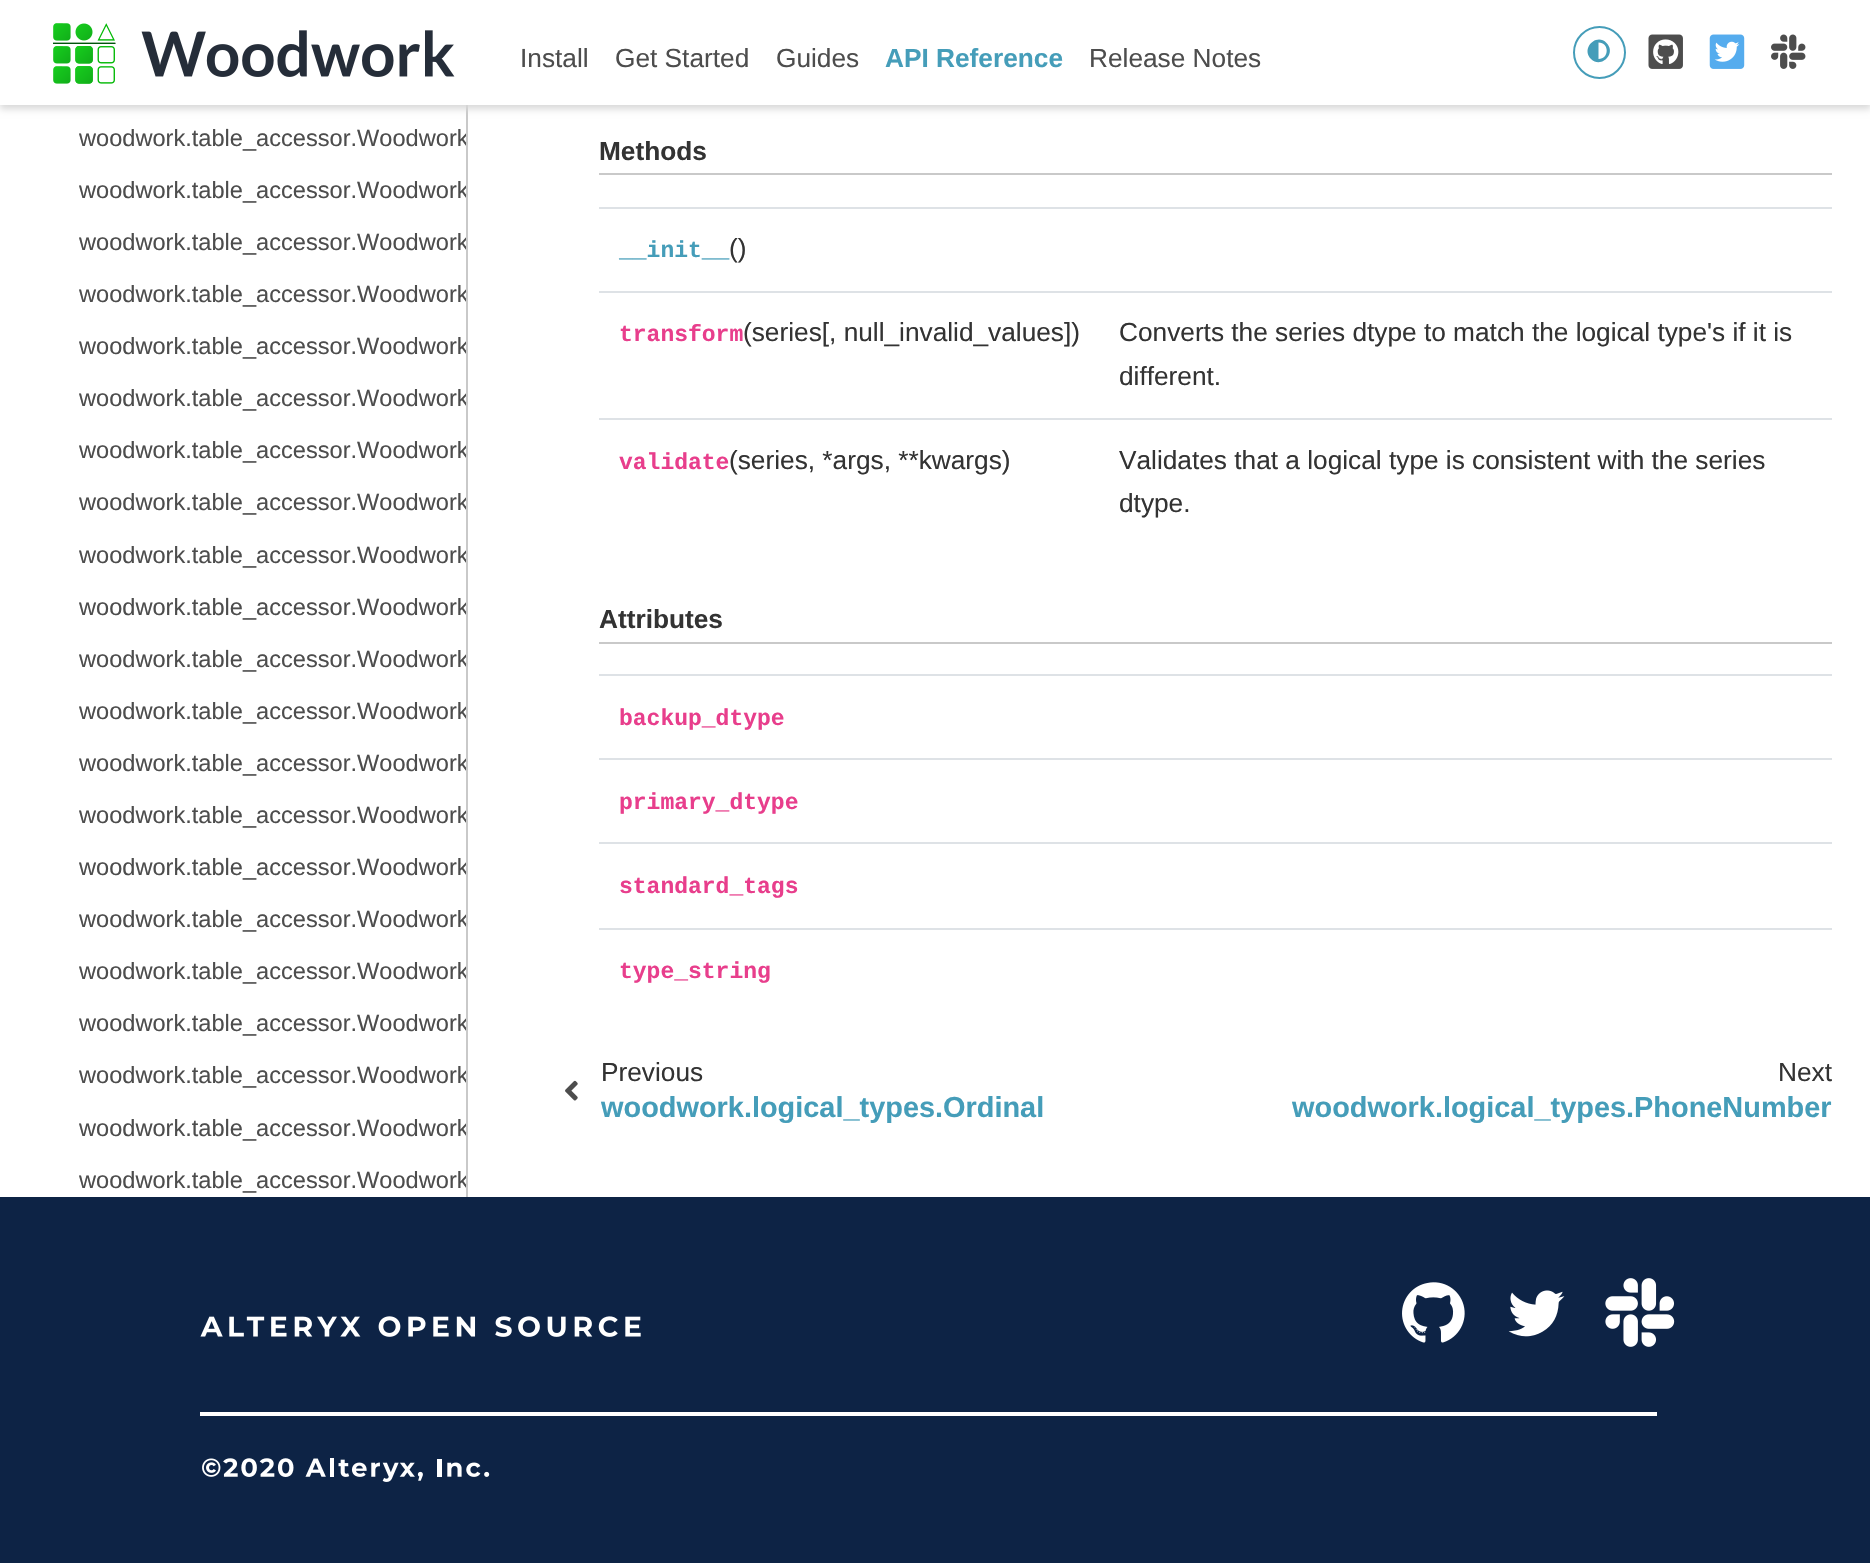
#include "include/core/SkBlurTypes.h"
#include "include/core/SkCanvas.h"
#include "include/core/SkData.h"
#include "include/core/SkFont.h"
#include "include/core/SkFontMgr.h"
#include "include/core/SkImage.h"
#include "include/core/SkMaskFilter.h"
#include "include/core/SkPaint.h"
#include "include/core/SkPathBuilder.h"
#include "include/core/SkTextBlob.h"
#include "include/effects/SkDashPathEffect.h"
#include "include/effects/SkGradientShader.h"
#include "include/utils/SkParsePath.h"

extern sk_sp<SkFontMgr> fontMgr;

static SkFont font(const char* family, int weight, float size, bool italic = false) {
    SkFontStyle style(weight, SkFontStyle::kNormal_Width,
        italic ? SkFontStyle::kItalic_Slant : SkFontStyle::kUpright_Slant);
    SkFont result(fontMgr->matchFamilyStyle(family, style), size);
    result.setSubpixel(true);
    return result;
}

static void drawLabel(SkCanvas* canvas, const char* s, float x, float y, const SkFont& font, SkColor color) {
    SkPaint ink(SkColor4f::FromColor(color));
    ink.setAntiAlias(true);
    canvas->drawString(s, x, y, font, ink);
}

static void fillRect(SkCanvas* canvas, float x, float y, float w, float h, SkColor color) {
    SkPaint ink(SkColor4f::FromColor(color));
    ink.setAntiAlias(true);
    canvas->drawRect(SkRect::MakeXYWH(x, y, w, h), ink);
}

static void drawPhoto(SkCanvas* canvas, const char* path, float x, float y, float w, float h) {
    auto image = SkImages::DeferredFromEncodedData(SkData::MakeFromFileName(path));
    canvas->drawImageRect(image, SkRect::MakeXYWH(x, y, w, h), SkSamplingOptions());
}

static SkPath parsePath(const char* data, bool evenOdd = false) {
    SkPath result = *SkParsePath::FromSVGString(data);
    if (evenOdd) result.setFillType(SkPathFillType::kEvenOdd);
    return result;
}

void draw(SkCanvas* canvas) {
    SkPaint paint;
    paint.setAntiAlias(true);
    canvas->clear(0xFFFFFFFF);
    fillRect(canvas, 466, 105, 2, 1092, 0xFFC9C9C9);
    paint.setColor(0xFFD8D8D8);
    paint.setMaskFilter(SkMaskFilter::MakeBlur(kNormal_SkBlurStyle, 3.5f));
    canvas->drawRect(SkRect::MakeXYWH(0, 4, 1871, 105), paint);
    paint.setMaskFilter(nullptr);
    fillRect(canvas, 0, 0, 1870, 105, 0xFFFFFFFF);
    drawPhoto(canvas, "assets/img1.png", 53, 23, 402, 61);
    SkFont font1 = font("Liberation Sans", 400, 26.25f);
    drawLabel(canvas, "Install", 520, 67, font1, 0xFF4D4D4D);
    drawLabel(canvas, "Get Started", 615, 67, font1, 0xFF4D4D4D);
    drawLabel(canvas, "Guides", 776, 67, font1, 0xFF4D4D4D);
    SkFont font2 = font("Liberation Sans", 700, 26.25f);
    drawLabel(canvas, "API Reference", 885, 67, font2, 0xFF459DB9);
    drawLabel(canvas, "Release Notes", 1089, 67, font1, 0xFF4D4D4D);
    paint.setStroke(true);
    paint.setStrokeWidth(2);
    paint.setColor(0xFF459DB9);
    canvas->drawCircle(1599.5f, 52.5f, 25.5f, paint);
    paint.setStroke(false);
    canvas->drawPath(parsePath("M1591 59C1580.5 48.5 1596.5 32.5 1606.5 43C1617 53.5 1601 69 1591 59ZM1598.5 59C1609.5 59 1609.5 42.5 1598.5 42.5Z"), paint);
    drawPhoto(canvas, "assets/img2.png", 1648, 34, 35, 35);
    drawPhoto(canvas, "assets/img3.png", 1709, 34, 36, 35);
    drawPhoto(canvas, "assets/img4.png", 1771, 34, 35, 35);
    canvas->save();
    canvas->clipRect(SkRect::MakeXYWH(0, 0, 466, 1197));
    SkFont font3 = font("Liberation Sans", 400, 23.6f);
    drawLabel(canvas, "woodwork.table_accessor.Woodwork", 79, 146, font3, 0xFF4D4D4D);
    drawLabel(canvas, "woodwork.table_accessor.Woodwork", 79, 198, font3, 0xFF4D4D4D);
    drawLabel(canvas, "woodwork.table_accessor.Woodwork", 79, 250, font3, 0xFF4D4D4D);
    drawLabel(canvas, "woodwork.table_accessor.Woodwork", 79, 302, font3, 0xFF4D4D4D);
    drawLabel(canvas, "woodwork.table_accessor.Woodwork", 79, 354, font3, 0xFF4D4D4D);
    drawLabel(canvas, "woodwork.table_accessor.Woodwork", 79, 406, font3, 0xFF4D4D4D);
    drawLabel(canvas, "woodwork.table_accessor.Woodwork", 79, 458, font3, 0xFF4D4D4D);
    drawLabel(canvas, "woodwork.table_accessor.Woodwork", 79, 510, font3, 0xFF4D4D4D);
    drawLabel(canvas, "woodwork.table_accessor.Woodwork", 79, 563, font3, 0xFF4D4D4D);
    drawLabel(canvas, "woodwork.table_accessor.Woodwork", 79, 615, font3, 0xFF4D4D4D);
    drawLabel(canvas, "woodwork.table_accessor.Woodwork", 79, 667, font3, 0xFF4D4D4D);
    drawLabel(canvas, "woodwork.table_accessor.Woodwork", 79, 719, font3, 0xFF4D4D4D);
    drawLabel(canvas, "woodwork.table_accessor.Woodwork", 79, 771, font3, 0xFF4D4D4D);
    drawLabel(canvas, "woodwork.table_accessor.Woodwork", 79, 823, font3, 0xFF4D4D4D);
    drawLabel(canvas, "woodwork.table_accessor.Woodwork", 79, 875, font3, 0xFF4D4D4D);
    drawLabel(canvas, "woodwork.table_accessor.Woodwork", 79, 927, font3, 0xFF4D4D4D);
    drawLabel(canvas, "woodwork.table_accessor.Woodwork", 79, 979, font3, 0xFF4D4D4D);
    drawLabel(canvas, "woodwork.table_accessor.Woodwork", 79, 1031, font3, 0xFF4D4D4D);
    drawLabel(canvas, "woodwork.table_accessor.Woodwork", 79, 1083, font3, 0xFF4D4D4D);
    drawLabel(canvas, "woodwork.table_accessor.Woodwork", 79, 1136, font3, 0xFF4D4D4D);
    drawLabel(canvas, "woodwork.table_accessor.Woodwork", 79, 1188, font3, 0xFF4D4D4D);
    canvas->restore();
    fillRect(canvas, 599, 173, 1233, 2, 0xFFC9C9C9);
    drawLabel(canvas, "Methods", 599, 160, font2, 0xFF333333);
    fillRect(canvas, 599, 207, 1233, 2, 0xFFDEE2E6);
    SkFont font4 = font("Liberation Mono", 700, 23);
    drawLabel(canvas, "__init__", 619, 257, font4, 0xFF459DB9);
    drawLabel(canvas, "()", 729, 257, font1, 0xFF333333);
    drawLabel(canvas, "transform", 619, 341, font4, 0xFFE83E8C);
    drawLabel(canvas, "(series[, null_invalid_values])", 743, 341, font1, 0xFF333333);
    fillRect(canvas, 599, 291, 1233, 2, 0xFFDEE2E6);
    drawLabel(canvas, "Converts the series dtype to match the logical type's if it is", 1119, 341, font1, 0xFF333333);
    drawLabel(canvas, "different.", 1119, 385, font1, 0xFF333333);
    drawLabel(canvas, "validate", 619, 469, font4, 0xFFE83E8C);
    drawLabel(canvas, "(series, *args, **kwargs)", 729, 469, font1, 0xFF333333);
    fillRect(canvas, 599, 418, 1233, 2, 0xFFDEE2E6);
    drawLabel(canvas, "Validates that a logical type is consistent with the series", 1119, 469, font1, 0xFF333333);
    drawLabel(canvas, "dtype.", 1119, 512, font1, 0xFF333333);
    fillRect(canvas, 599, 642, 1233, 2, 0xFFC9C9C9);
    drawLabel(canvas, "Attributes", 599, 628, font2, 0xFF333333);
    fillRect(canvas, 599, 674, 1233, 2, 0xFFDEE2E6);
    drawLabel(canvas, "backup_dtype", 619, 725, font4, 0xFFE83E8C);
    fillRect(canvas, 599, 758, 1233, 2, 0xFFDEE2E6);
    drawLabel(canvas, "primary_dtype", 619, 809, font4, 0xFFE83E8C);
    fillRect(canvas, 599, 842, 1233, 2, 0xFFDEE2E6);
    drawLabel(canvas, "standard_tags", 619, 893, font4, 0xFFE83E8C);
    fillRect(canvas, 599, 928, 1233, 2, 0xFFDEE2E6);
    drawLabel(canvas, "type_string", 619, 978, font4, 0xFFE83E8C);
    drawPhoto(canvas, "assets/img5.png", 565, 1080, 13, 21);
    drawLabel(canvas, "Previous", 601, 1081, font1, 0xFF333333);
    SkFont font5 = font("Liberation Sans", 700, 28.9f);
    drawLabel(canvas, "woodwork.logical_types.Ordinal", 601, 1117, font5, 0xFF459DB9);
    drawLabel(canvas, "Next", 1778, 1081, font1, 0xFF333333);
    drawLabel(canvas, "woodwork.logical_types.PhoneNumber", 1292, 1117, font5, 0xFF459DB9);
    fillRect(canvas, 0, 1197, 1870, 366, 0xFF0D2345);
    drawPhoto(canvas, "assets/img6.png", 200, 1316, 441, 21);
    drawPhoto(canvas, "assets/img7.png", 1402, 1282, 63, 61);
    drawPhoto(canvas, "assets/img8.png", 1508, 1290, 57, 47);
    drawPhoto(canvas, "assets/img9.png", 1605, 1278, 70, 69);
    fillRect(canvas, 200, 1412, 1457, 4, 0xFFFFFFFF);
    drawPhoto(canvas, "assets/img10.png", 202, 1458, 288, 24);
}
